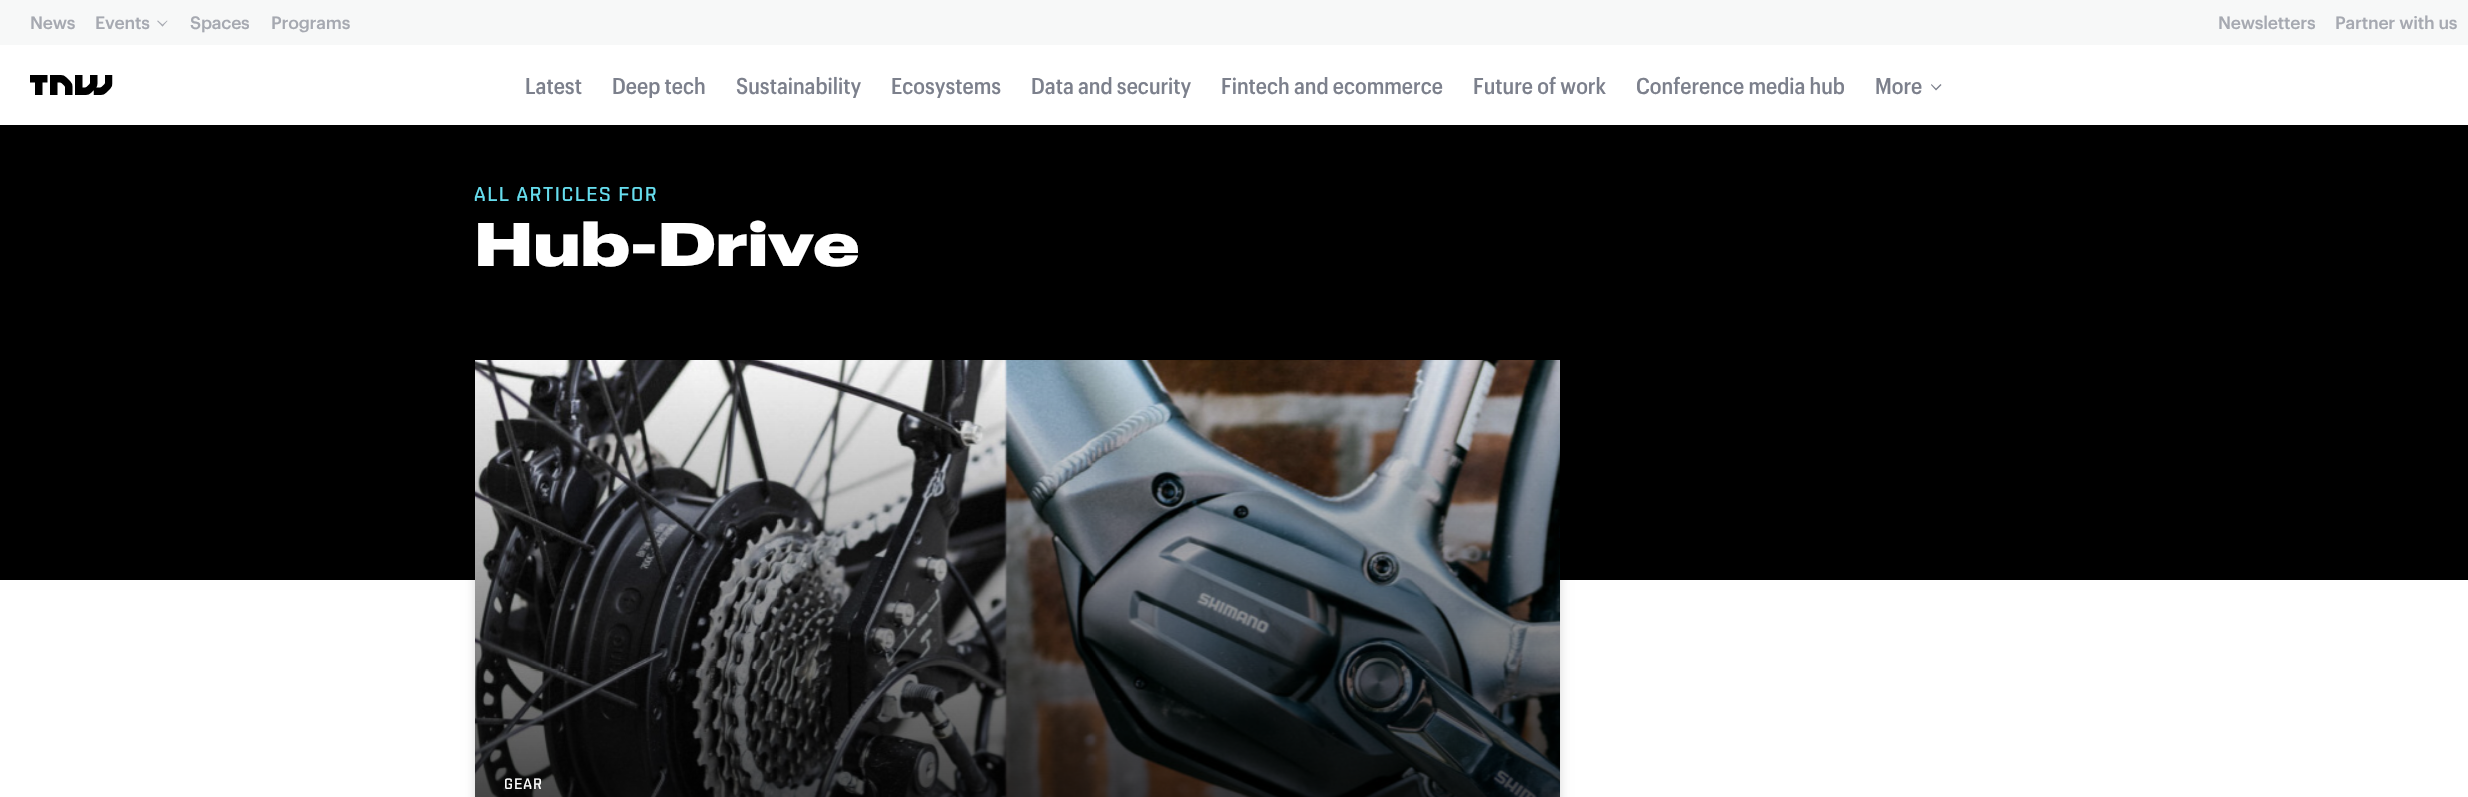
#include "include/core/SkBlurTypes.h"
#include "include/core/SkCanvas.h"
#include "include/core/SkData.h"
#include "include/core/SkFont.h"
#include "include/core/SkFontMgr.h"
#include "include/core/SkImage.h"
#include "include/core/SkMaskFilter.h"
#include "include/core/SkPaint.h"
#include "include/core/SkPathBuilder.h"
#include "include/core/SkTextBlob.h"
#include "include/effects/SkDashPathEffect.h"
#include "include/effects/SkGradientShader.h"
#include "include/utils/SkParsePath.h"

extern sk_sp<SkFontMgr> fontMgr;

static SkFont font(const char* family, int weight, float size, bool italic = false) {
    SkFontStyle style(weight, SkFontStyle::kNormal_Width,
        italic ? SkFontStyle::kItalic_Slant : SkFontStyle::kUpright_Slant);
    SkFont result(fontMgr->matchFamilyStyle(family, style), size);
    result.setSubpixel(true);
    return result;
}

static void drawLabel(SkCanvas* canvas, const char* s, float x, float y, const SkFont& font, SkColor color) {
    SkPaint ink(SkColor4f::FromColor(color));
    ink.setAntiAlias(true);
    canvas->drawString(s, x, y, font, ink);
}

static void drawTracked(SkCanvas* canvas, const char* s, float x, float y, const SkFont& font, const SkPaint& ink, float letter, float word) {
    std::vector<SkGlyphID> glyphs(font.countText(s, strlen(s), SkTextEncoding::kUTF8));
    std::vector<float> xs(glyphs.size());
    font.textToGlyphs(s, strlen(s), SkTextEncoding::kUTF8, glyphs);
    font.getXPos(glyphs, xs, x);
    float extra = 0;
    for (size_t i = 0; i < glyphs.size(); i++) {
        xs[i] += extra;
        extra += letter + word * (glyphs[i] == font.unicharToGlyph(' '));
    }
    canvas->drawTextBlob(SkTextBlob::MakeFromPosHGlyphs(glyphs, xs, y, font), 0, 0, ink);
}

static void fillRect(SkCanvas* canvas, float x, float y, float w, float h, SkColor color) {
    SkPaint ink(SkColor4f::FromColor(color));
    ink.setAntiAlias(true);
    canvas->drawRect(SkRect::MakeXYWH(x, y, w, h), ink);
}

static void drawPhoto(SkCanvas* canvas, const char* path, float x, float y, float w, float h) {
    auto image = SkImages::DeferredFromEncodedData(SkData::MakeFromFileName(path));
    canvas->drawImageRect(image, SkRect::MakeXYWH(x, y, w, h), SkSamplingOptions());
}

static SkPath parsePath(const char* data, bool evenOdd = false) {
    SkPath result = *SkParsePath::FromSVGString(data);
    if (evenOdd) result.setFillType(SkPathFillType::kEvenOdd);
    return result;
}

void draw(SkCanvas* canvas) {
    SkPaint paint;
    paint.setAntiAlias(true);
    canvas->clear(0xFFFFFFFF);
    fillRect(canvas, 0, 0, 2468, 45, 0xFFF7F8F8);
    SkFont font1 = font("Graphik", 500, 17.5f);
    paint.setColor(0xFFA6A9B1);
    drawTracked(canvas, "News", 30, 29, font1, paint, -0.2f, 0);
    drawTracked(canvas, "Events", 95, 29, font1, paint, -0.2f, 0);
    canvas->drawPath(parsePath("M167 20.5L167.5 21L162.5 26.5L161.5 25.5Z"), paint);
    canvas->drawPath(parsePath("M158 20.5L163.5 25.5L162.5 26.5L157 21Z"), paint);
    drawTracked(canvas, "Spaces", 190, 29, font1, paint, -0.2f, 0);
    drawTracked(canvas, "Programs", 271, 29, font1, paint, -0.2f, 0);
    drawTracked(canvas, "Newsletters", 2218, 29, font1, paint, -0.2f, 0);
    drawTracked(canvas, "Partner with us", 2335, 29, font1, paint, -0.2f, 0);
    drawPhoto(canvas, "assets/img1.png", 30, 75, 83, 20);
    SkFont font2 = font("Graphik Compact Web", 500, 22.5f);
    drawLabel(canvas, "Latest", 525, 94, font2, 0xFF7C808C);
    drawLabel(canvas, "Deep tech", 612, 94, font2, 0xFF7C808C);
    drawLabel(canvas, "Sustainability", 736, 94, font2, 0xFF7C808C);
    drawLabel(canvas, "Ecosystems", 891, 94, font2, 0xFF7C808C);
    drawLabel(canvas, "Data and security", 1031, 94, font2, 0xFF7C808C);
    drawLabel(canvas, "Fintech and ecommerce", 1221, 94, font2, 0xFF7C808C);
    drawLabel(canvas, "Future of work", 1473, 94, font2, 0xFF7C808C);
    drawLabel(canvas, "Conference media hub", 1636, 94, font2, 0xFF7C808C);
    drawLabel(canvas, "More", 1875, 94, font2, 0xFF7C808C);
    paint.setColor(0xFF7C808C);
    canvas->drawPath(parsePath("M1941.5 85L1936 90.5V88.5L1940.5 84ZM1936 90.5L1931 85L1931.5 84L1936 88.5Z"), paint);
    fillRect(canvas, 0, 125, 2468, 455, 0xFF000000);
    SkFont font3 = font("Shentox", 500, 20);
    paint.setColor(0xFF66DDEE);
    drawTracked(canvas, "ALL ARTICLES FOR", 474, 201, font3, paint, 1.6f, 0);
    SkFont font4 = font("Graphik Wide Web", 800, 60);
    drawLabel(canvas, "Hub-Drive", 474, 266, font4, 0xFFFFFFFF);
    paint.setColor(0x26000000);
    paint.setMaskFilter(SkMaskFilter::MakeBlur(kNormal_SkBlurStyle, 5));
    canvas->drawRect(SkRect::MakeXYWH(475, 363, 1085, 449), paint);
    paint.setMaskFilter(nullptr);
    drawPhoto(canvas, "assets/img2.png", 475, 360, 1085, 437);
    SkFont font5 = font("Shentox", 500, 15);
    paint.setColor(0xFFFFFFFF);
    drawTracked(canvas, "GEAR", 504, 789, font5, paint, 1, 0);
}
